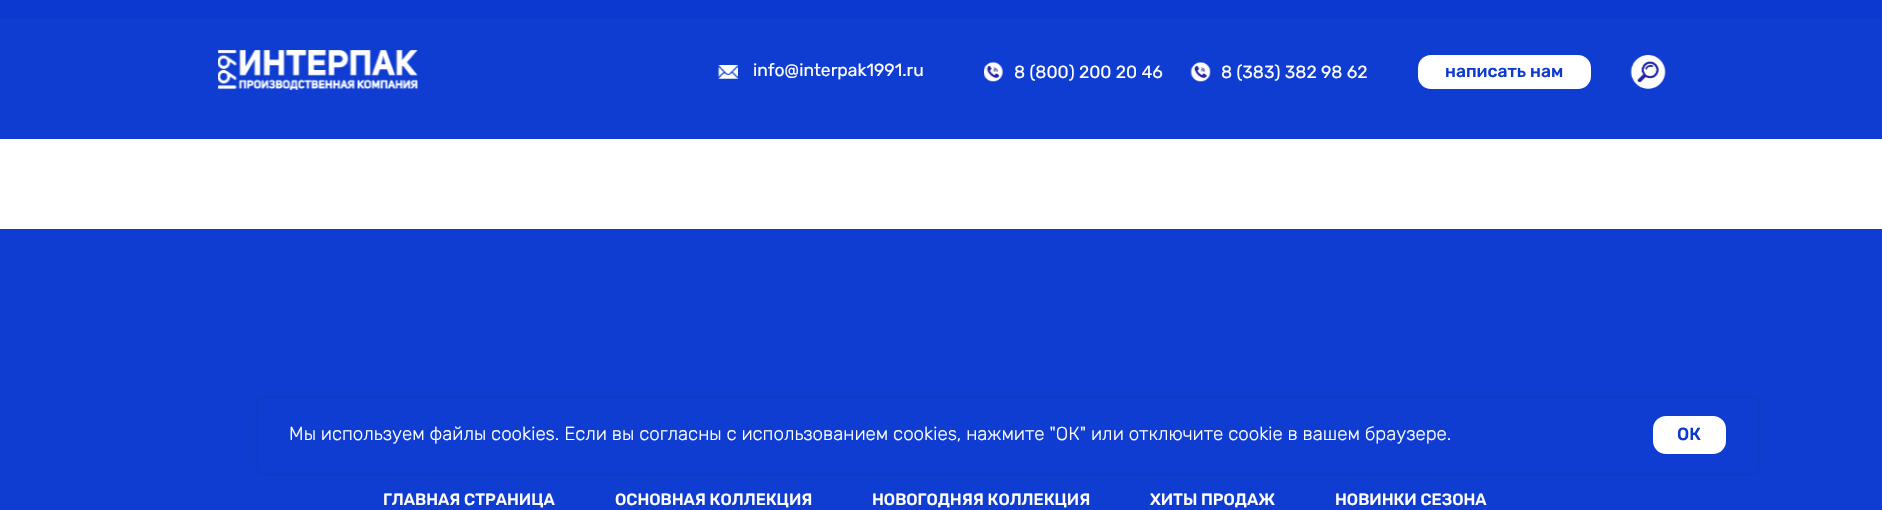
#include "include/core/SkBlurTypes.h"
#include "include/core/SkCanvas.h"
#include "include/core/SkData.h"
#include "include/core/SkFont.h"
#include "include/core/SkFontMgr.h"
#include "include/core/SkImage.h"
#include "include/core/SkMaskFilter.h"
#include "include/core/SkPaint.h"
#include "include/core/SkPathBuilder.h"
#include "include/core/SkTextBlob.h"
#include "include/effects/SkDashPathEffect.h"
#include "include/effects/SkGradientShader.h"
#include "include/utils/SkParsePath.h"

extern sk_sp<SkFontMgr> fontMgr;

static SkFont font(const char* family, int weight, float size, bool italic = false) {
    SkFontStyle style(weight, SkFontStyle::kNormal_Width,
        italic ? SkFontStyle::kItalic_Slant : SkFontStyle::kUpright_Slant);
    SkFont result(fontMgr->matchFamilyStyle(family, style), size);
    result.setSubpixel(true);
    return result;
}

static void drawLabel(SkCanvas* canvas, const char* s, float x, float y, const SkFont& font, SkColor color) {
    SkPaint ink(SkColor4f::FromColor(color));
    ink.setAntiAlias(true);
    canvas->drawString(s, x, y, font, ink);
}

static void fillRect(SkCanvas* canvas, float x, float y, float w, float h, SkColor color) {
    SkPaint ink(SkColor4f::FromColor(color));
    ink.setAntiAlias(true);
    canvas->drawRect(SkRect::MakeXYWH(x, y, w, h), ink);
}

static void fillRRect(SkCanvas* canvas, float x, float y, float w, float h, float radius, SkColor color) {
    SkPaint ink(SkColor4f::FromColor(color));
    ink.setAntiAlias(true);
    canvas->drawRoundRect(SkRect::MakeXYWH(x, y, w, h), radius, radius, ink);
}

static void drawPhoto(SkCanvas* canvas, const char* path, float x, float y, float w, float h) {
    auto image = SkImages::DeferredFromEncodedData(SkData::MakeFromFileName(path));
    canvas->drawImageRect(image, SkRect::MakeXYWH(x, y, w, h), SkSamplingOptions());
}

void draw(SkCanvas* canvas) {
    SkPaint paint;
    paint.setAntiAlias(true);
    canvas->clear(0xFFFFFFFF);
    fillRect(canvas, 0, 19, 1882, 120, 0xFF103DD1);
    fillRect(canvas, 0, 0, 1882, 19, 0xFF0C39CF);
    drawPhoto(canvas, "assets/img1.png", 218, 50, 200, 40);
    drawPhoto(canvas, "assets/img2.png", 718, 65, 20, 14);
    SkFont font1 = font("Rubik", 400, 17.5f);
    drawLabel(canvas, "info@interpak1991.ru", 753, 76, font1, 0xFFFFFFFF);
    drawPhoto(canvas, "assets/img3.png", 984, 62, 19, 20);
    drawLabel(canvas, "8 (800) 200 20 46", 1014, 78, font1, 0xFFFFFFFF);
    drawPhoto(canvas, "assets/img4.png", 1190, 62, 21, 20);
    drawLabel(canvas, "8 (383) 382 98 62", 1221, 78, font1, 0xFFFFFFFF);
    fillRRect(canvas, 1418, 55, 173, 34, 13, 0xFFFFFFFF);
    SkFont font2 = font("Rubik", 500, 17.5f);
    drawLabel(canvas, "написать нам", 1445, 77, font2, 0xFF0C39CF);
    drawPhoto(canvas, "assets/img5.png", 1630, 55, 36, 34);
    fillRect(canvas, 0, 229, 1882, 281, 0xFF103DD1);
    paint.setColor(0x1A000000);
    paint.setMaskFilter(SkMaskFilter::MakeBlur(kNormal_SkBlurStyle, 3));
    canvas->drawRoundRect(SkRect::MakeXYWH(258, 398, 1500, 75), 6, 6, paint);
    paint.setMaskFilter(nullptr);
    fillRRect(canvas, 258, 398, 1500, 75, 6, 0xFF103DD1);
    SkFont font3 = font("Rubik", 300, 18.75f);
    drawLabel(canvas, "Мы используем файлы cookies. Если вы согласны с использованием cookies, нажмите \"ОК\" или отключите cookie в вашем браузере.", 289, 440, font3, 0xFFFFFFFF);
    fillRRect(canvas, 1653, 416, 73, 38, 13, 0xFFFFFFFF);
    drawLabel(canvas, "ОК", 1677, 440, font2, 0xFF0C39CF);
    SkFont font4 = font("Rubik", 500, 16.25f);
    drawLabel(canvas, "ГЛАВНАЯ СТРАНИЦА", 383, 505, font4, 0xFFFFFFFF);
    drawLabel(canvas, "ОСНОВНАЯ КОЛЛЕКЦИЯ", 615, 505, font4, 0xFFFFFFFF);
    drawLabel(canvas, "НОВОГОДНЯЯ КОЛЛЕКЦИЯ", 872, 505, font4, 0xFFFFFFFF);
    drawLabel(canvas, "ХИТЫ ПРОДАЖ", 1150, 505, font4, 0xFFFFFFFF);
    drawLabel(canvas, "НОВИНКИ СЕЗОНА", 1335, 505, font4, 0xFFFFFFFF);
}
